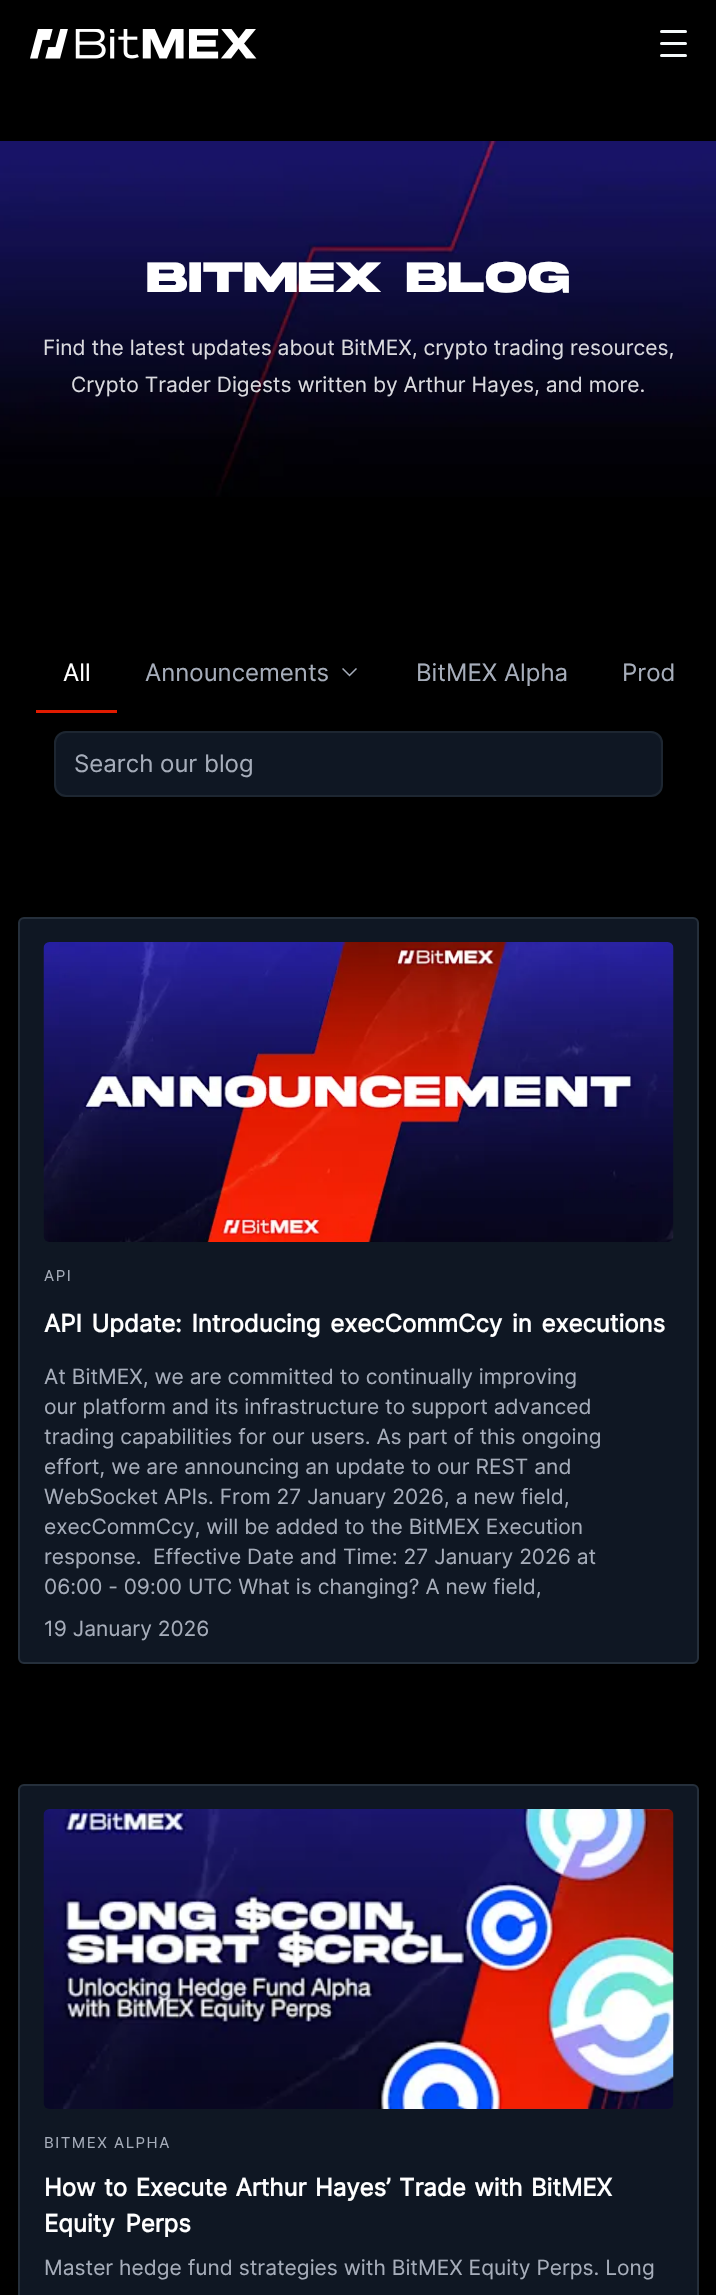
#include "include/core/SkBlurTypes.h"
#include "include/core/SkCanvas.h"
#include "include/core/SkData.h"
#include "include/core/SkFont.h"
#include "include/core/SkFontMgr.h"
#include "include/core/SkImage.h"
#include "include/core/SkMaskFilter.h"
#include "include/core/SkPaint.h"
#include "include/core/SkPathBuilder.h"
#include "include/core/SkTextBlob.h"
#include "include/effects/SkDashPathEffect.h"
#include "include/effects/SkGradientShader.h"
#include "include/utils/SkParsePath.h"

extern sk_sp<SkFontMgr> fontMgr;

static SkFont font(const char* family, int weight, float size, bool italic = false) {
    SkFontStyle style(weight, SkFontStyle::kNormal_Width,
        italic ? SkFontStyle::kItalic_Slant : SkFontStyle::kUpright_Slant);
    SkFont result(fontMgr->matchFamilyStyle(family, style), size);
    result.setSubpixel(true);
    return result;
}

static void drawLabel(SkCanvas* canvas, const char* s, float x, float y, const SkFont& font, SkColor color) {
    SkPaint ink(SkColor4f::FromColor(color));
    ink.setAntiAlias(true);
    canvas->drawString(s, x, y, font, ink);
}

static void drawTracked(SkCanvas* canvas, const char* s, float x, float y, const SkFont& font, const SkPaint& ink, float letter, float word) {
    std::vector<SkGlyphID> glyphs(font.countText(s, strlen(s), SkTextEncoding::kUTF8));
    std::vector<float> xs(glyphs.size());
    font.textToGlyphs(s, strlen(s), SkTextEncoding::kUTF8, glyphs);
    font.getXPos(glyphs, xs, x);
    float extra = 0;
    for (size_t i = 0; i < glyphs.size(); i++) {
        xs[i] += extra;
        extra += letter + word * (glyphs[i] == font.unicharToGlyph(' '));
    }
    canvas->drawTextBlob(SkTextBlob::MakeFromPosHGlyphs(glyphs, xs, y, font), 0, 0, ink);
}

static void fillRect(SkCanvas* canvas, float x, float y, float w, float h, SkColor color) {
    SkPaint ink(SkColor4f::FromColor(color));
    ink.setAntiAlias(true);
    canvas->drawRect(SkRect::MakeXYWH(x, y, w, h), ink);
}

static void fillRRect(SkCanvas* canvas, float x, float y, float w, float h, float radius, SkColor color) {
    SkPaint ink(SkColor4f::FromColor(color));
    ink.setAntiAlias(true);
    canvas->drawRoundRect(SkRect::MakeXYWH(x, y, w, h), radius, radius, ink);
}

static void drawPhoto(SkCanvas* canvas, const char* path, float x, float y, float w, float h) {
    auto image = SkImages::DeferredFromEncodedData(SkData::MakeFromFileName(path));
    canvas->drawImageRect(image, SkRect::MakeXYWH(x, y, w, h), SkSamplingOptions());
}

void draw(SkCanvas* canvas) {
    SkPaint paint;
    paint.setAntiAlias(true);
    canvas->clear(0xFF000000);
    drawPhoto(canvas, "assets/img1.png", 30, 29, 227, 30);
    fillRRect(canvas, 660, 42, 27, 3, 1.5f, 0xFFF5F9FA);
    fillRRect(canvas, 660, 30, 27, 3, 1.5f, 0xFFF5F9FA);
    fillRRect(canvas, 660, 54, 27, 3, 1.5f, 0xFFF5F9FA);
    drawPhoto(canvas, "assets/img2.png", 0, 141, 716, 356);
    SkFont font1 = font("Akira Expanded", 700, 45);
    paint.setColor(0xFFFFFFFF);
    drawTracked(canvas, "BITMEX BLOG", 147, 292, font1, paint, 1.5f, 0);
    SkFont font2 = font("Inter", 400, 21);
    drawLabel(canvas, "Find the latest updates about BitMEX, crypto trading resources,", 43, 355, font2, 0xFFDADADF);
    drawLabel(canvas, "Crypto Trader Digests written by Arthur Hayes, and more.", 71, 392, font2, 0xFFDADADF);
    fillRect(canvas, 36, 710, 81, 3, 0xFFE11B00);
    SkFont font3 = font("Inter", 400, 24);
    drawLabel(canvas, "All", 63, 681, font3, 0xFFFFFFFF);
    drawLabel(canvas, "Announcements", 145, 681, font3, 0xFFA6ADBA);
    drawPhoto(canvas, "assets/img3.png", 342, 668, 15, 9);
    drawLabel(canvas, "BitMEX Alpha", 416, 681, font3, 0xFFA6ADBA);
    drawLabel(canvas, "Prod", 622, 681, font3, 0xFFA6ADBA);
    paint.setColor(0xFF0F1723);
    canvas->drawRoundRect(SkRect::MakeXYWH(55, 732, 607, 64), 11, 11, paint);
    paint.setStroke(true);
    paint.setStrokeWidth(2);
    paint.setColor(0xFF1D2631);
    canvas->drawRoundRect(SkRect::MakeXYWH(55, 732, 607, 64), 11, 11, paint);
    drawLabel(canvas, "Search our blog", 74, 772, font3, 0xFFA6ADBA);
    paint.setStroke(false);
    paint.setColor(0xFF0F1723);
    canvas->drawRoundRect(SkRect::MakeXYWH(19, 918, 679, 745), 5, 5, paint);
    paint.setStroke(true);
    paint.setColor(0xFF252F3B);
    canvas->drawRoundRect(SkRect::MakeXYWH(19, 918, 679, 745), 5, 5, paint);
    drawPhoto(canvas, "assets/img4.png", 43, 942, 631, 300);
    SkFont font4 = font("Inter", 400, 15);
    paint.setStroke(false);
    paint.setColor(0xFFA6ADBA);
    drawTracked(canvas, "API", 44, 1281, font4, paint, 1.5f, 0);
    SkFont font5 = font("Inter", 700, 24);
    paint.setColor(0xFFFFFFFF);
    drawTracked(canvas, "API Update: Introducing execCommCcy in executions", 44, 1332, font5, paint, 0, 3);
    drawLabel(canvas, "At BitMEX, we are committed to continually improving", 44, 1384, font2, 0xFFA6ADBA);
    drawLabel(canvas, "our platform and its infrastructure to support advanced", 44, 1414, font2, 0xFFA6ADBA);
    drawLabel(canvas, "trading capabilities for our users. As part of this ongoing", 44, 1444, font2, 0xFFA6ADBA);
    drawLabel(canvas, "effort, we are announcing an update to our REST and", 44, 1474, font2, 0xFFA6ADBA);
    drawLabel(canvas, "WebSocket APIs. From 27 January 2026, a new field,", 44, 1504, font2, 0xFFA6ADBA);
    drawLabel(canvas, "execCommCcy, will be added to the BitMEX Execution", 44, 1534, font2, 0xFFA6ADBA);
    drawLabel(canvas, "response.", 44, 1564, font2, 0xFFA6ADBA);
    drawLabel(canvas, "Effective Date and Time: 27 January 2026 at", 153, 1564, font2, 0xFFA6ADBA);
    drawLabel(canvas, "06:00 - 09:00 UTC What is changing? A new field,", 44, 1594, font2, 0xFFA6ADBA);
    drawLabel(canvas, "19 January 2026", 44, 1636, font2, 0xFFA6ADBA);
    paint.setColor(0xFF0F1723);
    canvas->drawRoundRect(SkRect::MakeXYWH(19, 1785, 679, 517), 5, 5, paint);
    paint.setStroke(true);
    paint.setColor(0xFF252F3B);
    canvas->drawRoundRect(SkRect::MakeXYWH(19, 1785, 679, 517), 5, 5, paint);
    drawPhoto(canvas, "assets/img5.png", 43, 1809, 631, 300);
    paint.setStroke(false);
    paint.setColor(0xFFA6ADBA);
    drawTracked(canvas, "BITMEX ALPHA", 44, 2148, font4, paint, 1.5f, 0);
    paint.setColor(0xFFFFFFFF);
    drawTracked(canvas, "How to Execute Arthur Hayes’ Trade with BitMEX", 44, 2196, font5, paint, 0, 1.75f);
    drawTracked(canvas, "Equity Perps", 44, 2232, font5, paint, 0, 4);
    drawLabel(canvas, "Master hedge fund strategies with BitMEX Equity Perps. Long", 44, 2275, font2, 0xFFA6ADBA);
}
